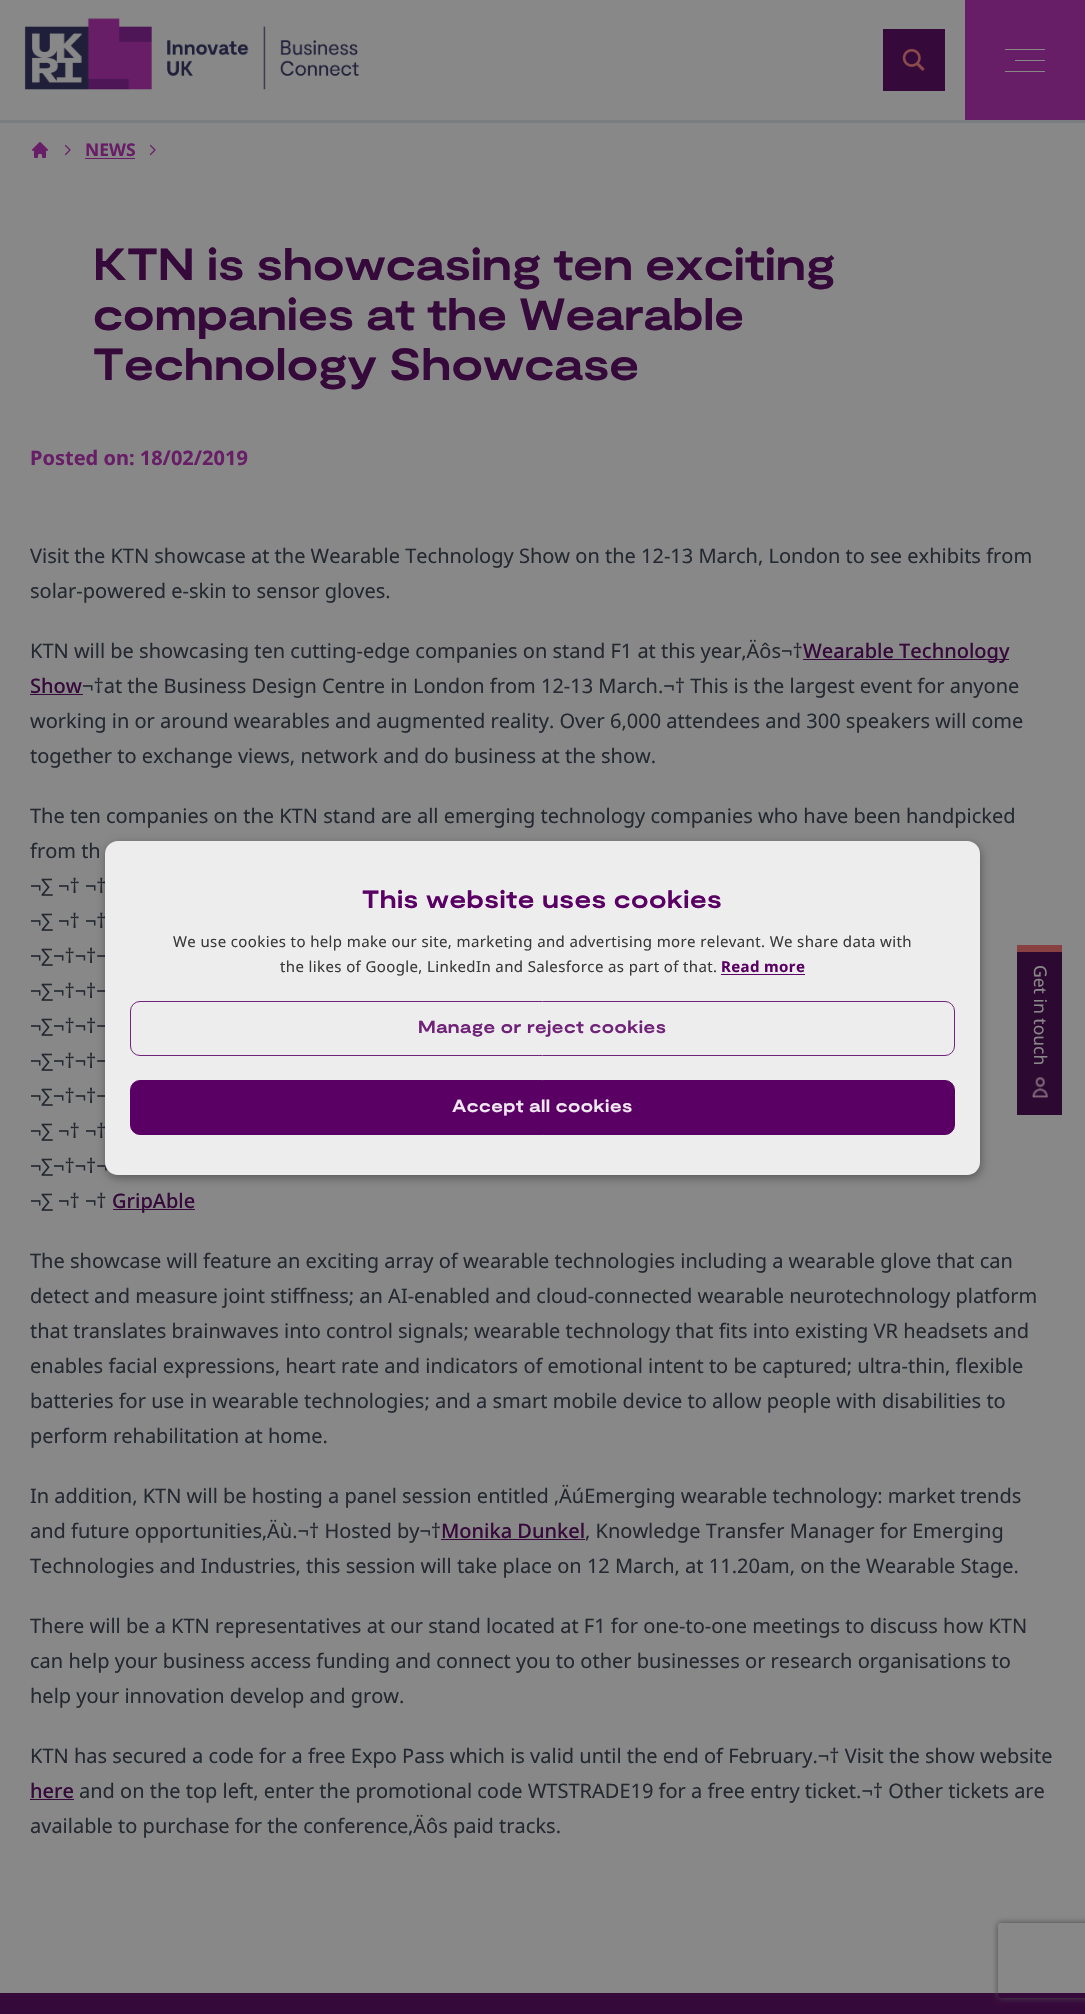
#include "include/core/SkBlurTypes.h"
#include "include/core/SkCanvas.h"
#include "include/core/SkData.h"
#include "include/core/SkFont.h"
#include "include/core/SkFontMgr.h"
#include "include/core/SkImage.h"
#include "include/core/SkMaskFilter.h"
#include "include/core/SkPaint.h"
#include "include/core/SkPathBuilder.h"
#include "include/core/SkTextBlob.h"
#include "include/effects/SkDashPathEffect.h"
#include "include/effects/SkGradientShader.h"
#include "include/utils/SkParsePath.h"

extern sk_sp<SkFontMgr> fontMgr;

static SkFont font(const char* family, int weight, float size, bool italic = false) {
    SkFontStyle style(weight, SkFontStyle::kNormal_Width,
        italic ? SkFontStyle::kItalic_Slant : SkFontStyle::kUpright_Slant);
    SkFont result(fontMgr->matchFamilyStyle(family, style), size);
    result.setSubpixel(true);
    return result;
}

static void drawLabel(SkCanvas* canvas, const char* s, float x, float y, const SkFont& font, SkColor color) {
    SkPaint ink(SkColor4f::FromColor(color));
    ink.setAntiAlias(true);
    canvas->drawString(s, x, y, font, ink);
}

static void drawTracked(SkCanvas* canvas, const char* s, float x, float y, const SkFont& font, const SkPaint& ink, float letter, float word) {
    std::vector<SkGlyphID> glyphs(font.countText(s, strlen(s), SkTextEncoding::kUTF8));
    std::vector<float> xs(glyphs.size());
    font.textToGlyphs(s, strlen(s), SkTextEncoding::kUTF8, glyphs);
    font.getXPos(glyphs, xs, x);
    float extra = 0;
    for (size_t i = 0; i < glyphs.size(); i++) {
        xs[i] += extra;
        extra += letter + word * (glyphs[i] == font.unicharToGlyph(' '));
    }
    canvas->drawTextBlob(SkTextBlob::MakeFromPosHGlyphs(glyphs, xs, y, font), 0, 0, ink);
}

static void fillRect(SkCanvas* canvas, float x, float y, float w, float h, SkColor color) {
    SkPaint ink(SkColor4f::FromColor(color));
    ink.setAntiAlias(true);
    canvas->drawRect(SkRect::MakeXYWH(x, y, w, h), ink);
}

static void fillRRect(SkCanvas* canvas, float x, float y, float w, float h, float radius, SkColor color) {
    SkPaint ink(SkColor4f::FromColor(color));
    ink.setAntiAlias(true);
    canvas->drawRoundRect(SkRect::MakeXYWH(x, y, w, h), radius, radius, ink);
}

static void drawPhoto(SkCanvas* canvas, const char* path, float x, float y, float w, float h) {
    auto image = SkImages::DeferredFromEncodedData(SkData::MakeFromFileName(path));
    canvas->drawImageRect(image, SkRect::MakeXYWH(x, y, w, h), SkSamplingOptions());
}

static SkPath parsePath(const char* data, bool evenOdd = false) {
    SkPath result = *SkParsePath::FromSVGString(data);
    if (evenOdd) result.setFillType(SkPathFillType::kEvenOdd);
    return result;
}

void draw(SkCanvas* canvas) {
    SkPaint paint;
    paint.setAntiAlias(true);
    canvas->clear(0xFF888888);
    fillRect(canvas, 0, 120, 1085, 3, 0xFF7B7C7E);
    drawPhoto(canvas, "assets/img1.png", 24, 18, 335, 72);
    fillRect(canvas, 883, 29, 62, 62, 0xFF36093B);
    drawPhoto(canvas, "assets/img2.png", 902, 48, 23, 23);
    fillRect(canvas, 965, 0, 120, 120, 0xFF681E66);
    fillRect(canvas, 1005, 49, 40, 1, 0xFF888888);
    fillRect(canvas, 1015, 60, 30, 1, 0xFF888888);
    fillRect(canvas, 1005, 71, 40, 1, 0xFF888888);
    drawPhoto(canvas, "assets/img3.png", 32, 142, 16, 16);
    paint.setStroke(true);
    paint.setStrokeWidth(1.2f);
    paint.setStrokeCap(SkPaint::kRound_Cap);
    paint.setStrokeJoin(SkPaint::kRound_Join);
    paint.setColor(0xFF681E66);
    canvas->drawPath(parsePath("M65.5 145.5L70 150L65.5 154.5"), paint);
    SkFont font1 = font("Noto Sans", 700, 17.5f);
    drawLabel(canvas, "NEWS", 85, 156, font1, 0xFF681E66);
    fillRect(canvas, 85, 158, 50, 1, 0xFF681E66);
    canvas->drawPath(parsePath("M150.5 145.5L155 150L150.5 154.5"), paint);
    SkFont font2 = font("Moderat", 700, 45);
    drawLabel(canvas, "KTN is showcasing ten exciting", 93, 280, font2, 0xFF36093B);
    drawLabel(canvas, "companies at the Wearable", 93, 330, font2, 0xFF36093B);
    drawLabel(canvas, "Technology Showcase", 93, 380, font2, 0xFF36093B);
    SkFont font3 = font("Noto Sans", 700, 20);
    drawLabel(canvas, "Posted on: 18/02/2019", 30, 465, font3, 0xFF681E66);
    SkFont font4 = font("Noto Sans", 400, 20);
    drawLabel(canvas, "Visit the KTN showcase at the Wearable Technology Show on the 12-13 March, London to see exhibits from", 30, 563, font4, 0xFF242931);
    drawLabel(canvas, "solar-powered e-skin to sensor gloves.", 30, 598, font4, 0xFF242931);
    drawLabel(canvas, "KTN will be showcasing ten cutting-edge companies on stand F1 at this year‚Äôs¬†", 30, 658, font4, 0xFF242931);
    fillRect(canvas, 803, 659, 206, 1, 0xFF36093B);
    SkFont font5 = font("Noto Sans", 500, 20);
    drawLabel(canvas, "Wearable Technology", 803, 658, font5, 0xFF36093B);
    drawLabel(canvas, "Show", 30, 693, font5, 0xFF36093B);
    fillRect(canvas, 30, 694, 53, 1, 0xFF36093B);
    drawLabel(canvas, "¬†at the Business Design Centre in London from 12-13 March.¬† This is the largest event for anyone", 82, 693, font4, 0xFF242931);
    drawLabel(canvas, "working in or around wearables and augmented reality. Over 6,000 attendees and 300 speakers will come", 30, 728, font4, 0xFF242931);
    drawLabel(canvas, "together to exchange views, network and do business at the show.", 30, 763, font4, 0xFF242931);
    drawLabel(canvas, "The ten companies on the KTN stand are all emerging technology companies who have been handpicked", 30, 823, font4, 0xFF242931);
    drawLabel(canvas, "from th", 30, 858, font4, 0xFF242931);
    drawLabel(canvas, "¬", 30, 893, font4, 0xFF242931);
    SkFont font6 = font("Roboto", 400, 20);
    drawLabel(canvas, "∑", 41, 893, font6, 0xFF242931);
    drawLabel(canvas, "¬† ¬†", 58, 893, font4, 0xFF242931);
    drawLabel(canvas, "¬", 30, 928, font4, 0xFF242931);
    drawLabel(canvas, "∑", 41, 928, font6, 0xFF242931);
    drawLabel(canvas, "¬† ¬†", 58, 928, font4, 0xFF242931);
    drawLabel(canvas, "¬", 30, 963, font4, 0xFF242931);
    drawLabel(canvas, "∑", 41, 963, font6, 0xFF242931);
    drawLabel(canvas, "¬†¬†¬", 53, 963, font4, 0xFF242931);
    drawLabel(canvas, "¬", 30, 998, font4, 0xFF242931);
    drawLabel(canvas, "∑", 41, 998, font6, 0xFF242931);
    drawLabel(canvas, "¬†¬†¬", 53, 998, font4, 0xFF242931);
    drawLabel(canvas, "¬", 30, 1033, font4, 0xFF242931);
    drawLabel(canvas, "∑", 41, 1033, font6, 0xFF242931);
    drawLabel(canvas, "¬†¬†¬", 53, 1033, font4, 0xFF242931);
    drawLabel(canvas, "¬", 30, 1068, font4, 0xFF242931);
    drawLabel(canvas, "∑", 41, 1068, font6, 0xFF242931);
    drawLabel(canvas, "¬†¬†¬", 53, 1068, font4, 0xFF242931);
    drawLabel(canvas, "¬", 30, 1103, font4, 0xFF242931);
    drawLabel(canvas, "∑", 41, 1103, font6, 0xFF242931);
    drawLabel(canvas, "¬†¬†¬", 53, 1103, font4, 0xFF242931);
    drawLabel(canvas, "¬", 30, 1138, font4, 0xFF242931);
    drawLabel(canvas, "∑", 41, 1138, font6, 0xFF242931);
    drawLabel(canvas, "¬† ¬†", 58, 1138, font4, 0xFF242931);
    drawLabel(canvas, "¬", 30, 1173, font4, 0xFF242931);
    drawLabel(canvas, "∑", 41, 1173, font6, 0xFF242931);
    drawLabel(canvas, "¬†¬†¬", 53, 1173, font4, 0xFF242931);
    drawLabel(canvas, "¬", 30, 1208, font4, 0xFF242931);
    drawLabel(canvas, "∑", 41, 1208, font6, 0xFF242931);
    drawLabel(canvas, "¬† ¬†", 58, 1208, font4, 0xFF242931);
    fillRect(canvas, 113, 1209, 82, 1, 0xFF36093B);
    drawLabel(canvas, "GripAble", 112, 1208, font5, 0xFF36093B);
    drawLabel(canvas, "The showcase will feature an exciting array of wearable technologies including a wearable glove that can", 30, 1268, font4, 0xFF242931);
    drawLabel(canvas, "detect and measure joint stiffness; an AI-enabled and cloud-connected wearable neurotechnology platform", 30, 1303, font4, 0xFF242931);
    drawLabel(canvas, "that translates brainwaves into control signals; wearable technology that fits into existing VR headsets and", 30, 1338, font4, 0xFF242931);
    drawLabel(canvas, "enables facial expressions, heart rate and indicators of emotional intent to be captured; ultra-thin, flexible", 30, 1373, font4, 0xFF242931);
    drawLabel(canvas, "batteries for use in wearable technologies; and a smart mobile device to allow people with disabilities to", 30, 1408, font4, 0xFF242931);
    drawLabel(canvas, "perform rehabilitation at home.", 30, 1443, font4, 0xFF242931);
    drawLabel(canvas, "In addition, KTN will be hosting a panel session entitled ‚ÄúEmerging wearable technology: market trends", 30, 1503, font4, 0xFF242931);
    drawLabel(canvas, "and future opportunities‚Äù.¬† Hosted by¬†", 30, 1538, font4, 0xFF242931);
    drawLabel(canvas, "Monika Dunkel", 441, 1538, font5, 0xFF36093B);
    fillRect(canvas, 441, 1539, 144, 1, 0xFF36093B);
    drawLabel(canvas, ", Knowledge Transfer Manager for Emerging", 585, 1538, font4, 0xFF242931);
    drawLabel(canvas, "Technologies and Industries, this session will take place on 12 March, at 11.20am, on the Wearable Stage.", 30, 1573, font4, 0xFF242931);
    drawLabel(canvas, "There will be a KTN representatives at our stand located at F1 for one-to-one meetings to discuss how KTN", 30, 1633, font4, 0xFF242931);
    drawLabel(canvas, "can help your business access funding and connect you to other businesses or research organisations to", 30, 1668, font4, 0xFF242931);
    drawLabel(canvas, "help your innovation develop and grow.", 30, 1703, font4, 0xFF242931);
    drawLabel(canvas, "KTN has secured a code for a free Expo Pass which is valid until the end of February.¬† Visit the show website", 30, 1763, font4, 0xFF242931);
    drawLabel(canvas, "here", 30, 1798, font5, 0xFF36093B);
    fillRect(canvas, 30, 1799, 44, 1, 0xFF36093B);
    drawLabel(canvas, "and on the top left, enter the promotional code WTSTRADE19 for a free entry ticket.¬† Other tickets are", 79, 1798, font4, 0xFF242931);
    drawLabel(canvas, "available to purchase for the conference‚Äôs paid tracks.", 30, 1833, font4, 0xFF242931);
    paint.setStroke(false);
    paint.setColor(0x59000000);
    paint.setMaskFilter(SkMaskFilter::MakeBlur(kNormal_SkBlurStyle, 5));
    canvas->drawRoundRect(SkRect::MakeXYWH(106, 844, 875, 334), 13, 13, paint);
    paint.setMaskFilter(nullptr);
    fillRRect(canvas, 105, 841, 875, 334, 13, 0xFFEDEDED);
    SkFont font7 = font("Moderat", 700, 25);
    paint.setColor(0xFF5A0064);
    drawTracked(canvas, "This website uses cookies", 362, 908, font7, paint, 0.5f, 0);
    SkFont font8 = font("Noto Sans", 400, 15);
    paint.setColor(0xFF3A3A3A);
    drawTracked(canvas, "We use cookies to help make our site, marketing and advertising more relevant. We share data with", 173, 947, font8, paint, 0.38f, 0);
    drawTracked(canvas, "the likes of Google, LinkedIn and Salesforce as part of that.", 280, 972, font8, paint, 0.38f, 0);
    SkFont font9 = font("Noto Sans", 700, 15);
    paint.setColor(0xFF5A0064);
    drawTracked(canvas, "Read more", 721, 972, font9, paint, 0.38f, 0);
    fillRect(canvas, 721, 974, 84, 1, 0xFF5A0064);
    paint.setStroke(true);
    paint.setStrokeWidth(1);
    paint.setStrokeCap(SkPaint::kButt_Cap);
    paint.setStrokeJoin(SkPaint::kMiter_Join);
    paint.setColor(0xFF702479);
    canvas->drawRoundRect(SkRect::MakeXYWH(130.5f, 1001.5f, 824, 54), 9.5f, 9.5f, paint);
    SkFont font10 = font("Moderat", 700, 17.5f);
    paint.setStroke(false);
    drawTracked(canvas, "Manage or reject cookies", 418, 1033, font10, paint, 0.5f, 0);
    paint.setColor(0xFF5A0064);
    canvas->drawRoundRect(SkRect::MakeXYWH(130.5f, 1080.5f, 824, 54), 9.5f, 9.5f, paint);
    paint.setStroke(true);
    canvas->drawRoundRect(SkRect::MakeXYWH(130.5f, 1080.5f, 824, 54), 9.5f, 9.5f, paint);
    paint.setStroke(false);
    paint.setColor(0xFFF0E8F1);
    drawTracked(canvas, "Accept all cookies", 452, 1112, font10, paint, 0.5f, 0);
    fillRect(canvas, 1017, 952, 45, 163, 0xFF2C0930);
    fillRect(canvas, 1017, 945, 45, 7, 0xFF884040);
    SkFont font11 = font("Noto Sans", 400, 17.5f);
    canvas->save();
    canvas->rotate(90, 1034, 965);
    drawLabel(canvas, "Get in touch", 1034, 965, font11, 0xFF888888);
    canvas->restore();
    drawPhoto(canvas, "assets/img4.png", 1032, 1077, 16, 21);
    fillRect(canvas, 0, 1993, 1085, 21, 0xFF36093B);
    canvas->save();
    canvas->clipPath(parsePath("M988 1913H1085V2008H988ZM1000.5 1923H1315.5C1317 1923 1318 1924 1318 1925.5V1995.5C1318 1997 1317 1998 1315.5 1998H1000.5C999 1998 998 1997 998 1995.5V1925.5C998 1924 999 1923 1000.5 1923Z", true), true);
    paint.setColor(0xFF494949);
    paint.setMaskFilter(SkMaskFilter::MakeBlur(kNormal_SkBlurStyle, 3));
    canvas->drawRoundRect(SkRect::MakeXYWH(998, 1923, 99, 75), 2.5f, 2.5f, paint);
    paint.setMaskFilter(nullptr);
    canvas->restore();
}
